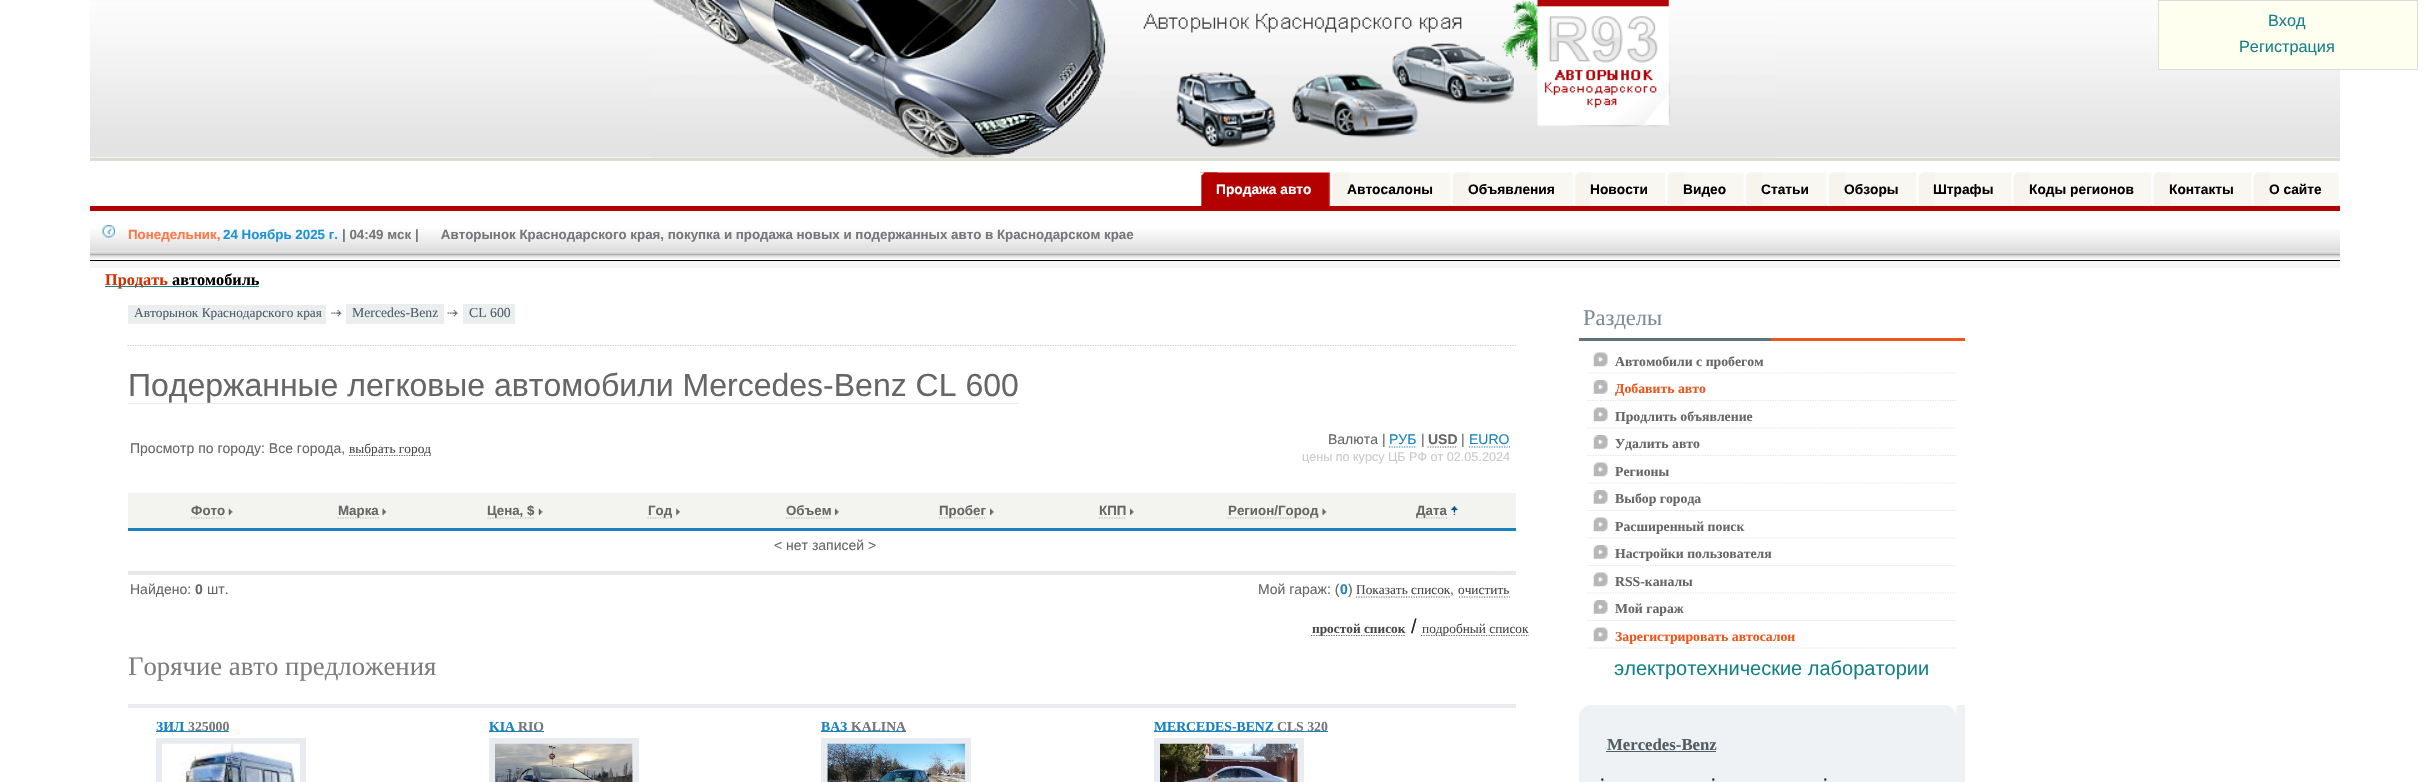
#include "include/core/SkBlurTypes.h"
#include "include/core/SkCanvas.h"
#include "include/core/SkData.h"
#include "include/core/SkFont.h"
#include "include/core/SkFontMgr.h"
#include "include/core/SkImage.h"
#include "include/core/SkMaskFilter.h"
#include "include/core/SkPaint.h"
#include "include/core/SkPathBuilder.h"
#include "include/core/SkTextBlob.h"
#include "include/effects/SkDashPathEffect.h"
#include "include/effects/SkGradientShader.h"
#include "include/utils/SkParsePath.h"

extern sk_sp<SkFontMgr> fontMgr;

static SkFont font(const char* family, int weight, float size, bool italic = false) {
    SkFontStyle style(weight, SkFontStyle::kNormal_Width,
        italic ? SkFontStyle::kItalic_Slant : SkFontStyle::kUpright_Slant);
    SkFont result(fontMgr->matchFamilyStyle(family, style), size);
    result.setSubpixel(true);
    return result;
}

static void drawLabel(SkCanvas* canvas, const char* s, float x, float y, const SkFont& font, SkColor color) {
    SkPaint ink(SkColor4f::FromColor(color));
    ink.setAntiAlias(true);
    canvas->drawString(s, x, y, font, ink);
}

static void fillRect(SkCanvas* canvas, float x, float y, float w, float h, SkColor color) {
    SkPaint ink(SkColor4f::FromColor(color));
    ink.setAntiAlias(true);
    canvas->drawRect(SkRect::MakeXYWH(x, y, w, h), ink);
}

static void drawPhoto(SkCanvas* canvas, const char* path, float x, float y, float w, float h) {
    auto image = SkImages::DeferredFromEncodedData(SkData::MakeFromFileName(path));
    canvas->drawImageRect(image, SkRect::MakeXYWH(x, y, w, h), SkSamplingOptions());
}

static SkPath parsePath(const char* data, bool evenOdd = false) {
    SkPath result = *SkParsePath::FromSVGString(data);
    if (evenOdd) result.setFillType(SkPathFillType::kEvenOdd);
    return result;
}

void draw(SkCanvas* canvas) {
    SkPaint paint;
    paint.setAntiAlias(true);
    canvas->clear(0xFFFFFFFF);
    drawPhoto(canvas, "assets/img1.png", 90, 0, 2250, 158);
    fillRect(canvas, 90, 158, 2250, 3, 0xFFDCDCCF);
    drawPhoto(canvas, "assets/img2.png", 652, 0, 1125, 158);
    paint.setColor(0xFFFFFFF0);
    canvas->drawRect(SkRect::MakeXYWH(2158.5f, 0.5f, 259, 69), paint);
    paint.setStroke(true);
    paint.setStrokeWidth(1);
    paint.setColor(0xFFDDDDDD);
    canvas->drawRect(SkRect::MakeXYWH(2158.5f, 0.5f, 259, 69), paint);
    SkFont font1 = font("Liberation Sans", 400, 16.25f);
    drawLabel(canvas, "Вход", 2268, 26, font1, 0xFF158188);
    drawLabel(canvas, "Регистрация", 2239, 52, font1, 0xFF158188);
    drawPhoto(canvas, "assets/img3.png", 1200, 172, 131, 34);
    drawPhoto(canvas, "assets/img4.png", 1200, 172, 18, 34);
    SkFont font2 = font("Liberation Sans", 700, 13.75f);
    drawLabel(canvas, "Продажа авто", 1216, 194, font2, 0xFFFFFFFF);
    drawPhoto(canvas, "assets/img5.png", 1331, 172, 121, 34);
    drawPhoto(canvas, "assets/img6.png", 1331, 172, 18, 34);
    drawLabel(canvas, "Автосалоны", 1347, 194, font2, 0xFF000000);
    drawPhoto(canvas, "assets/img7.png", 1451, 172, 123, 34);
    drawPhoto(canvas, "assets/img6.png", 1451, 172, 18, 34);
    drawLabel(canvas, "Объявления", 1468, 194, font2, 0xFF000000);
    drawPhoto(canvas, "assets/img8.png", 1573, 172, 94, 34);
    drawPhoto(canvas, "assets/img9.png", 1573, 172, 18, 34);
    drawLabel(canvas, "Новости", 1590, 194, font2, 0xFF000000);
    drawPhoto(canvas, "assets/img10.png", 1666, 172, 79, 34);
    drawPhoto(canvas, "assets/img6.png", 1666, 172, 18, 34);
    drawLabel(canvas, "Видео", 1683, 194, font2, 0xFF000000);
    drawPhoto(canvas, "assets/img11.png", 1745, 172, 83, 34);
    drawPhoto(canvas, "assets/img12.png", 1745, 172, 17, 34);
    drawLabel(canvas, "Статьи", 1761, 194, font2, 0xFF000000);
    drawPhoto(canvas, "assets/img13.png", 1827, 172, 91, 34);
    drawPhoto(canvas, "assets/img14.png", 1827, 172, 18, 34);
    drawLabel(canvas, "Обзоры", 1844, 194, font2, 0xFF000000);
    drawPhoto(canvas, "assets/img15.png", 1917, 172, 96, 34);
    drawPhoto(canvas, "assets/img14.png", 1917, 172, 18, 34);
    drawLabel(canvas, "Штрафы", 1933, 194, font2, 0xFF000000);
    drawPhoto(canvas, "assets/img16.png", 2012, 172, 141, 34);
    drawPhoto(canvas, "assets/img14.png", 2012, 172, 18, 34);
    drawLabel(canvas, "Коды регионов", 2029, 194, font2, 0xFF000000);
    drawPhoto(canvas, "assets/img17.png", 2152, 172, 101, 34);
    drawPhoto(canvas, "assets/img14.png", 2152, 172, 18, 34);
    drawLabel(canvas, "Контакты", 2169, 194, font2, 0xFF000000);
    drawPhoto(canvas, "assets/img18.png", 2252, 172, 88, 34);
    drawPhoto(canvas, "assets/img14.png", 2252, 172, 18, 34);
    drawLabel(canvas, "О сайте", 2269, 194, font2, 0xFF000000);
    drawPhoto(canvas, "assets/img19.png", 90, 229, 2250, 30);
    fillRect(canvas, 90, 206, 2250, 5, 0xFFB30000);
    fillRect(canvas, 90, 251, 2250, 1, 0xFFE6E6E6);
    drawPhoto(canvas, "assets/img20.png", 102, 225, 13, 13);
    SkFont font3 = font("Liberation Sans", 700, 13.33f);
    drawLabel(canvas, "Понедельник,", 128, 239, font3, 0xFFFF7847);
    drawLabel(canvas, "24 Ноябрь 2025 г.", 223, 239, font3, 0xFF1D95D3);
    drawLabel(canvas, "| 04:49 мск |      Авторынок Краснодарского края, покупка и продажа новых и подержанных авто в Краснодарском крае", 342, 239, font3, 0xFF74777B);
    fillRect(canvas, 90, 260, 2250, 1, 0xFF000000);
    fillRect(canvas, 90, 261, 2250, 7, 0xFFF6F6F6);
    fillRect(canvas, 105, 286, 154, 1, 0xFF158188);
    SkFont font4 = font("Liberation Serif", 700, 16.25f);
    drawLabel(canvas, "Продать", 105, 285, font4, 0xFFCC3300);
    drawLabel(canvas, "автомобиль", 172, 285, font4, 0xFF000000);
    fillRect(canvas, 128, 305, 198, 19, 0xFFEAEEEF);
    SkFont font5 = font("Liberation Serif", 400, 13.33f);
    drawLabel(canvas, "Авторынок Краснодарского края", 134, 317, font5, 0xFF515E68);
    drawPhoto(canvas, "assets/img21.png", 331, 309, 11, 8);
    fillRect(canvas, 346, 304, 98, 20, 0xFFEAEEEF);
    SkFont font6 = font("Liberation Serif", 400, 13.75f);
    drawLabel(canvas, "Mercedes-Benz", 352, 317, font6, 0xFF515E68);
    drawPhoto(canvas, "assets/img22.png", 447, 309, 11, 8);
    fillRect(canvas, 463, 304, 52, 20, 0xFFEAEEEF);
    drawLabel(canvas, "CL 600", 469, 317, font6, 0xFF515E68);
    paint.setStrokeWidth(1.2f);
    paint.setColor(0xFFCCCCCC);
    paint.setPathEffect(SkDashPathEffect::Make({{1.25f, 1.25f}}, 0));
    canvas->drawPath(parsePath("M127.5 345.5H1516"), paint);
    paint.setPathEffect(nullptr);
    SkFont font7 = font("Liberation Sans", 400, 32);
    drawLabel(canvas, "Подержанные легковые автомобили Mercedes-Benz CL 600", 128, 396, font7, 0xFF666666);
    fillRect(canvas, 128, 403, 890, 1, 0xFFEAEAEA);
    SkFont font8 = font("Liberation Sans", 400, 14);
    drawLabel(canvas, "Просмотр по городу: Все города,", 130, 453, font8, 0xFF666666);
    paint.setColor(0xFF666666);
    paint.setPathEffect(SkDashPathEffect::Make({{1.25f, 1.25f}}, 0));
    canvas->drawPath(parsePath("M349 455.5H431"), paint);
    paint.setPathEffect(nullptr);
    drawLabel(canvas, "выбрать город", 349, 453, font5, 0xFF484848);
    drawLabel(canvas, "Валюта |", 1328, 444, font8, 0xFF666666);
    drawLabel(canvas, "РУБ", 1389, 444, font8, 0xFF1882C0);
    paint.setColor(0xFF1882C0);
    paint.setPathEffect(SkDashPathEffect::Make({{1.25f, 1.25f}}, 0));
    canvas->drawPath(parsePath("M1389 447H1416"), paint);
    paint.setPathEffect(nullptr);
    drawLabel(canvas, "|", 1421, 444, font8, 0xFF666666);
    SkFont font9 = font("Liberation Sans", 700, 14);
    drawLabel(canvas, "USD", 1428, 444, font9, 0xFF666666);
    paint.setColor(0xFF666666);
    paint.setPathEffect(SkDashPathEffect::Make({{1.25f, 1.25f}}, 0));
    canvas->drawPath(parsePath("M1427.5 447H1457.5"), paint);
    paint.setPathEffect(nullptr);
    drawLabel(canvas, "|", 1461, 444, font8, 0xFF666666);
    drawLabel(canvas, "EURO", 1469, 444, font8, 0xFF1882C0);
    paint.setColor(0xFF1882C0);
    paint.setPathEffect(SkDashPathEffect::Make({{1.25f, 1.25f}}, 0));
    canvas->drawPath(parsePath("M1469 447H1510"), paint);
    paint.setPathEffect(nullptr);
    SkFont font10 = font("Liberation Sans", 400, 12.6f);
    drawLabel(canvas, "цены по курсу ЦБ РФ от 02.05.2024", 1302, 461, font10, 0xFFCACACA);
    fillRect(canvas, 128, 493, 1388, 35, 0xFFF3F4F0);
    drawLabel(canvas, "Фото", 191, 515, font3, 0xFF666666);
    paint.setColor(0xFFB6B3A7);
    paint.setPathEffect(SkDashPathEffect::Make({{1.25f, 1.25f}}, 0));
    canvas->drawPath(parsePath("M191 518H225"), paint);
    paint.setPathEffect(nullptr);
    drawPhoto(canvas, "assets/img23.png", 228, 508, 5, 7);
    paint.setPathEffect(SkDashPathEffect::Make({{1.25f, 1.25f}}, 0));
    canvas->drawPath(parsePath("M337.5 518H379"), paint);
    paint.setPathEffect(nullptr);
    drawLabel(canvas, "Марка", 338, 515, font3, 0xFF666666);
    drawPhoto(canvas, "assets/img24.png", 382, 508, 5, 7);
    paint.setPathEffect(SkDashPathEffect::Make({{1.25f, 1.25f}}, 0));
    canvas->drawPath(parsePath("M487.5 518H535"), paint);
    paint.setPathEffect(nullptr);
    drawLabel(canvas, "Цена, $", 487, 515, font3, 0xFF666666);
    drawPhoto(canvas, "assets/img23.png", 538, 508, 5, 7);
    paint.setPathEffect(SkDashPathEffect::Make({{1.25f, 1.25f}}, 0));
    canvas->drawPath(parsePath("M647.5 518H672.5"), paint);
    paint.setPathEffect(nullptr);
    drawLabel(canvas, "Год", 648, 515, font3, 0xFF666666);
    drawPhoto(canvas, "assets/img25.png", 676, 508, 4, 7);
    drawLabel(canvas, "Объем", 786, 515, font3, 0xFF666666);
    paint.setPathEffect(SkDashPathEffect::Make({{1.25f, 1.25f}}, 0));
    canvas->drawPath(parsePath("M786 518H831"), paint);
    paint.setPathEffect(nullptr);
    drawPhoto(canvas, "assets/img26.png", 835, 508, 4, 7);
    paint.setPathEffect(SkDashPathEffect::Make({{1.25f, 1.25f}}, 0));
    canvas->drawPath(parsePath("M939 518H986"), paint);
    paint.setPathEffect(nullptr);
    drawLabel(canvas, "Пробег", 939, 515, font3, 0xFF666666);
    drawPhoto(canvas, "assets/img26.png", 990, 508, 4, 7);
    drawLabel(canvas, "КПП", 1099, 515, font3, 0xFF666666);
    paint.setPathEffect(SkDashPathEffect::Make({{1.25f, 1.25f}}, 0));
    canvas->drawPath(parsePath("M1099 518H1126"), paint);
    paint.setPathEffect(nullptr);
    drawPhoto(canvas, "assets/img26.png", 1130, 508, 4, 7);
    paint.setPathEffect(SkDashPathEffect::Make({{1.25f, 1.25f}}, 0));
    canvas->drawPath(parsePath("M1227.5 518H1317.5"), paint);
    paint.setPathEffect(nullptr);
    drawLabel(canvas, "Регион/Город", 1228, 515, font3, 0xFF666666);
    drawPhoto(canvas, "assets/img24.png", 1322, 508, 5, 7);
    paint.setPathEffect(SkDashPathEffect::Make({{1.25f, 1.25f}}, 0));
    canvas->drawPath(parsePath("M1416 518H1447.5"), paint);
    paint.setPathEffect(nullptr);
    drawLabel(canvas, "Дата", 1416, 515, font3, 0xFF666666);
    drawPhoto(canvas, "assets/img27.png", 1451, 506, 7, 9);
    fillRect(canvas, 128, 528, 1388, 3, 0xFF1882C0);
    drawLabel(canvas, "< нет записей >", 774, 550, font8, 0xFF666666);
    fillRect(canvas, 128, 571, 1388, 4, 0xFFE6E9EC);
    drawLabel(canvas, "Найдено:", 130, 594, font8, 0xFF666666);
    drawLabel(canvas, "0", 195, 594, font9, 0xFF666666);
    drawLabel(canvas, "шт.", 207, 594, font8, 0xFF666666);
    drawLabel(canvas, "Мой гараж: (", 1258, 594, font8, 0xFF666666);
    drawLabel(canvas, "0", 1340, 594, font9, 0xFF1882C0);
    drawLabel(canvas, ")", 1348, 594, font8, 0xFF666666);
    drawLabel(canvas, "Показать список", 1356, 594, font5, 0xFF484848);
    paint.setColor(0xFF666666);
    paint.setPathEffect(SkDashPathEffect::Make({{1.25f, 1.25f}}, 0));
    canvas->drawPath(parsePath("M1356 597H1450"), paint);
    paint.setPathEffect(nullptr);
    drawLabel(canvas, ",", 1450, 594, font8, 0xFF666666);
    drawLabel(canvas, "очистить", 1458, 594, font5, 0xFF484848);
    paint.setPathEffect(SkDashPathEffect::Make({{1.25f, 1.25f}}, 0));
    canvas->drawPath(parsePath("M1459 597H1510"), paint);
    paint.setPathEffect(nullptr);
    paint.setPathEffect(SkDashPathEffect::Make({{1.25f, 1.25f}}, 0));
    canvas->drawPath(parsePath("M1311 635.5H1405"), paint);
    paint.setPathEffect(nullptr);
    SkFont font11 = font("Liberation Serif", 700, 13.33f);
    drawLabel(canvas, "простой список", 1312, 633, font11, 0xFF484848);
    SkFont font12 = font("Liberation Sans", 400, 20);
    drawLabel(canvas, "/", 1411, 633, font12, 0xFF222222);
    paint.setPathEffect(SkDashPathEffect::Make({{1.25f, 1.25f}}, 0));
    canvas->drawPath(parsePath("M1421 635.5H1529"), paint);
    paint.setPathEffect(nullptr);
    drawLabel(canvas, "подробный список", 1422, 633, font5, 0xFF484848);
    SkFont font13 = font("Liberation Serif", 400, 26.75f);
    drawLabel(canvas, "Горячие авто предложения", 128, 675, font13, 0xFF7A7D81);
    fillRect(canvas, 128, 704, 1388, 4, 0xFFE8EBEF);
    fillRect(canvas, 156, 731, 73, 1, 0xFF1882C0);
    SkFont font14 = font("Liberation Serif", 700, 13.75f);
    drawLabel(canvas, "ЗИЛ", 156, 731, font14, 0xFF1882C0);
    drawLabel(canvas, "325000", 188, 731, font14, 0xFF74777B);
    paint.setStrokeWidth(6);
    paint.setColor(0xFFE8EBEF);
    canvas->drawRect(SkRect::MakeXYWH(159, 741, 144, 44), paint);
    drawPhoto(canvas, "assets/img28.png", 163, 743, 137, 39);
    drawLabel(canvas, "KIA", 489, 731, font14, 0xFF1882C0);
    fillRect(canvas, 489, 731, 55, 1, 0xFF1882C0);
    drawLabel(canvas, "RIO", 518, 731, font14, 0xFF74777B);
    canvas->drawRect(SkRect::MakeXYWH(492, 741, 144, 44), paint);
    drawPhoto(canvas, "assets/img29.png", 495, 743, 138, 39);
    fillRect(canvas, 821, 731, 85, 1, 0xFF1882C0);
    drawLabel(canvas, "ВАЗ", 821, 731, font14, 0xFF1882C0);
    drawLabel(canvas, "KALINA", 851, 731, font14, 0xFF74777B);
    canvas->drawRect(SkRect::MakeXYWH(824, 741, 144, 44), paint);
    drawPhoto(canvas, "assets/img30.png", 827, 743, 138, 39);
    fillRect(canvas, 1154, 731, 174, 1, 0xFF1882C0);
    drawLabel(canvas, "MERCEDES-BENZ", 1154, 731, font14, 0xFF1882C0);
    drawLabel(canvas, "CLS 320", 1277, 731, font14, 0xFF74777B);
    canvas->drawRect(SkRect::MakeXYWH(1157, 741, 144, 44), paint);
    drawPhoto(canvas, "assets/img31.png", 1160, 743, 138, 39);
    fillRect(canvas, 1579, 338, 192, 3, 0xFF61727A);
    SkFont font15 = font("Liberation Serif", 400, 22.5f);
    drawLabel(canvas, "Разделы", 1583, 325, font15, 0xFF7C8C95);
    fillRect(canvas, 1771, 338, 194, 3, 0xFFED561C);
    paint.setStrokeWidth(1.2f);
    paint.setColor(0xFFE4E4E4);
    paint.setPathEffect(SkDashPathEffect::Make({{1.25f, 1.25f}}, 0));
    canvas->drawPath(parsePath("M1587.5 373H1956"), paint);
    paint.setPathEffect(nullptr);
    drawPhoto(canvas, "assets/img32.png", 1593, 352, 15, 15);
    drawLabel(canvas, "Автомобили с пробегом", 1615, 366, font14, 0xFF666666);
    paint.setPathEffect(SkDashPathEffect::Make({{1.25f, 1.25f}}, 0));
    canvas->drawPath(parsePath("M1587.5 400.5H1956"), paint);
    paint.setPathEffect(nullptr);
    drawPhoto(canvas, "assets/img33.png", 1593, 380, 15, 14);
    drawLabel(canvas, "Добавить авто", 1615, 393, font14, 0xFFED561C);
    paint.setPathEffect(SkDashPathEffect::Make({{1.25f, 1.25f}}, 0));
    canvas->drawPath(parsePath("M1587.5 428H1956"), paint);
    paint.setPathEffect(nullptr);
    drawPhoto(canvas, "assets/img32.png", 1593, 407, 15, 15);
    drawLabel(canvas, "Продлить объявление", 1615, 421, font14, 0xFF666666);
    paint.setPathEffect(SkDashPathEffect::Make({{1.25f, 1.25f}}, 0));
    canvas->drawPath(parsePath("M1587.5 455.5H1956"), paint);
    paint.setPathEffect(nullptr);
    drawPhoto(canvas, "assets/img33.png", 1593, 435, 15, 14);
    drawLabel(canvas, "Удалить авто", 1615, 448, font14, 0xFF666666);
    paint.setPathEffect(SkDashPathEffect::Make({{1.25f, 1.25f}}, 0));
    canvas->drawPath(parsePath("M1587.5 483H1956"), paint);
    paint.setPathEffect(nullptr);
    drawPhoto(canvas, "assets/img32.png", 1593, 462, 15, 15);
    drawLabel(canvas, "Регионы", 1615, 476, font14, 0xFF666666);
    paint.setPathEffect(SkDashPathEffect::Make({{1.25f, 1.25f}}, 0));
    canvas->drawPath(parsePath("M1587.5 510.5H1956"), paint);
    paint.setPathEffect(nullptr);
    drawPhoto(canvas, "assets/img33.png", 1593, 490, 15, 14);
    drawLabel(canvas, "Выбор города", 1615, 503, font14, 0xFF666666);
    paint.setPathEffect(SkDashPathEffect::Make({{1.25f, 1.25f}}, 0));
    canvas->drawPath(parsePath("M1587.5 538H1956"), paint);
    paint.setPathEffect(nullptr);
    drawPhoto(canvas, "assets/img32.png", 1593, 517, 15, 15);
    drawLabel(canvas, "Расширенный поиск", 1615, 531, font14, 0xFF666666);
    paint.setPathEffect(SkDashPathEffect::Make({{1.25f, 1.25f}}, 0));
    canvas->drawPath(parsePath("M1587.5 565.5H1956"), paint);
    paint.setPathEffect(nullptr);
    drawPhoto(canvas, "assets/img33.png", 1593, 545, 15, 14);
    drawLabel(canvas, "Настройки пользователя", 1615, 558, font14, 0xFF666666);
    paint.setPathEffect(SkDashPathEffect::Make({{1.25f, 1.25f}}, 0));
    canvas->drawPath(parsePath("M1587.5 593H1956"), paint);
    paint.setPathEffect(nullptr);
    drawPhoto(canvas, "assets/img32.png", 1593, 572, 15, 15);
    drawLabel(canvas, "RSS-каналы", 1615, 586, font14, 0xFF666666);
    paint.setPathEffect(SkDashPathEffect::Make({{1.25f, 1.25f}}, 0));
    canvas->drawPath(parsePath("M1587.5 620.5H1956"), paint);
    paint.setPathEffect(nullptr);
    drawPhoto(canvas, "assets/img33.png", 1593, 600, 15, 14);
    drawLabel(canvas, "Мой гараж", 1615, 613, font14, 0xFF666666);
    paint.setPathEffect(SkDashPathEffect::Make({{1.25f, 1.25f}}, 0));
    canvas->drawPath(parsePath("M1587.5 648H1956"), paint);
    paint.setPathEffect(nullptr);
    drawPhoto(canvas, "assets/img32.png", 1593, 627, 15, 15);
    drawLabel(canvas, "Зарегистрировать автосалон", 1615, 641, font14, 0xFFED561C);
    drawLabel(canvas, "электротехнические лаборатории", 1614, 675, font12, 0xFF158188);
    fillRect(canvas, 1579, 705, 386, 77, 0xFFEEF2F4);
    drawPhoto(canvas, "assets/img34.png", 1578, 705, 11, 12);
    drawPhoto(canvas, "assets/img35.png", 1946, 705, 11, 10);
    SkFont font16 = font("Liberation Serif", 700, 16.75f);
    drawLabel(canvas, "Mercedes-Benz", 1607, 750, font16, 0xFF515E68);
    fillRect(canvas, 1606, 751, 110, 1, 0xFF515E68);
    drawLabel(canvas, "·", 1599, 785, font12, 0xFF222222);
    drawLabel(canvas, "·", 1710, 785, font12, 0xFF222222);
    drawLabel(canvas, "·", 1822, 785, font12, 0xFF222222);
}
